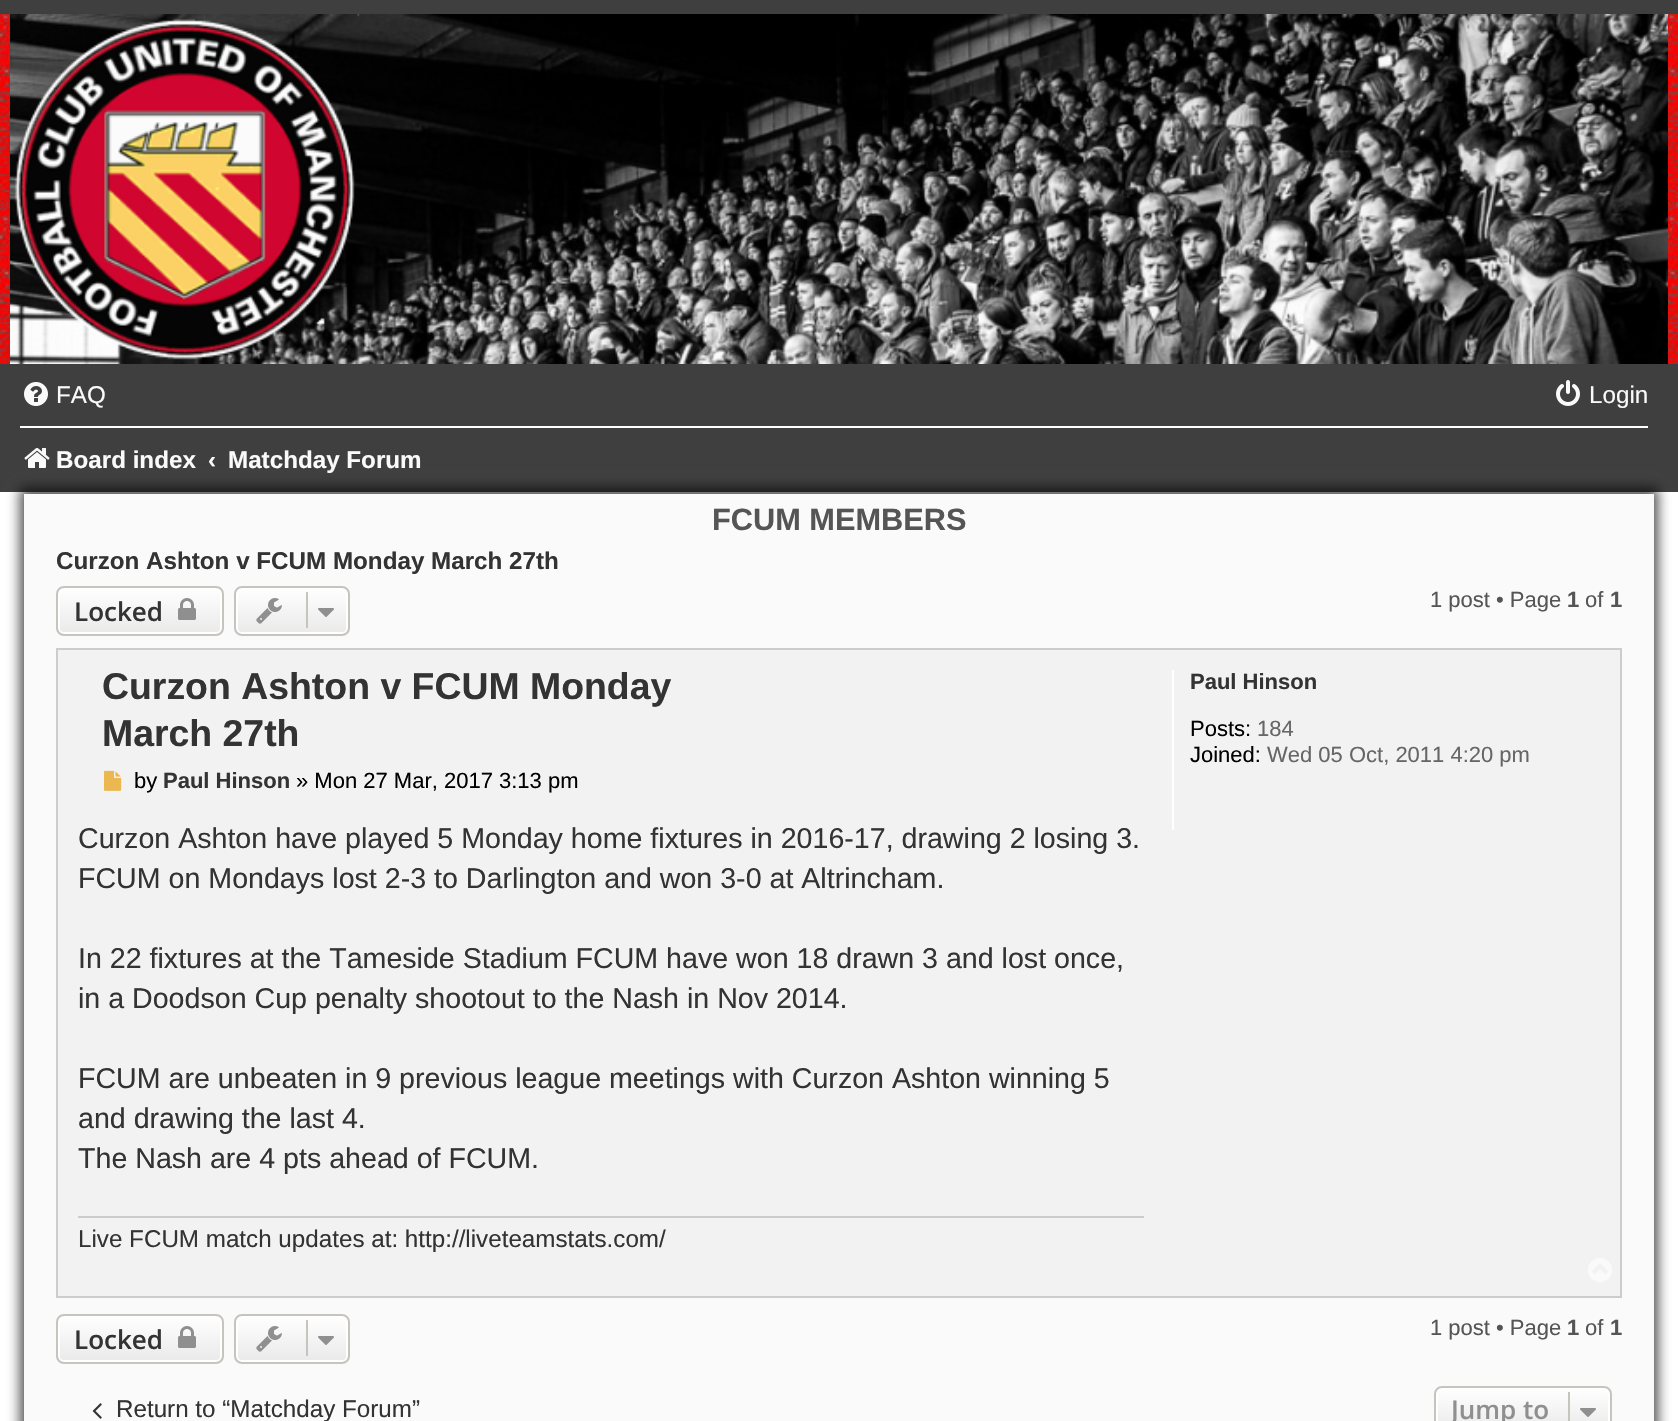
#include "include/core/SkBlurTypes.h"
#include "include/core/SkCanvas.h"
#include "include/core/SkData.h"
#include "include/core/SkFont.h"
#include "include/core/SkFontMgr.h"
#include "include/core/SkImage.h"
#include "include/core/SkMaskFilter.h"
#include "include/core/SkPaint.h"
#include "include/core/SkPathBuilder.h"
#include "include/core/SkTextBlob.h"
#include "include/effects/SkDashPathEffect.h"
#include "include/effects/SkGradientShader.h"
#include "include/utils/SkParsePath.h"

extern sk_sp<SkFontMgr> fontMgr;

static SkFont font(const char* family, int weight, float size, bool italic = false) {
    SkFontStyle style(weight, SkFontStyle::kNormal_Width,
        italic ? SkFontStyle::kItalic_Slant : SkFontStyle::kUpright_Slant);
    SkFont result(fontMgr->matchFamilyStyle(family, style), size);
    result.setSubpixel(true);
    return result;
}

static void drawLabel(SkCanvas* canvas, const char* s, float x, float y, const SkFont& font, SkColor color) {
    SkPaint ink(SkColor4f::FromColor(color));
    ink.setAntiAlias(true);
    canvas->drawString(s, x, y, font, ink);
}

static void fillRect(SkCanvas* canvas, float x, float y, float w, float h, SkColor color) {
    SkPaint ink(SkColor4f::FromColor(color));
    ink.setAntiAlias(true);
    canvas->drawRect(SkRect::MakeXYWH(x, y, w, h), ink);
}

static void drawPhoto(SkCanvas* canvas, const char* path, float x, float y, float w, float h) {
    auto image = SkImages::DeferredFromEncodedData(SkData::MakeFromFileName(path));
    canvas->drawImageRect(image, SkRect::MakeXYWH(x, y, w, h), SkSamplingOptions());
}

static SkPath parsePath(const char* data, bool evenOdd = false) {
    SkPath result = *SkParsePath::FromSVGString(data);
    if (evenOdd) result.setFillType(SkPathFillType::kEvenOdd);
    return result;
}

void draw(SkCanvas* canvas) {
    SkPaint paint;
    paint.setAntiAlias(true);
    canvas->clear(0xFFFFFFFF);
    drawPhoto(canvas, "assets/img1.png", 24, 492, 1630, 2);
    drawPhoto(canvas, "assets/img2.png", 0, 14, 1678, 350);
    fillRect(canvas, 0, 0, 1678, 14, 0xFF3F3F3F);
    drawPhoto(canvas, "assets/img3.png", 10, 14, 1658, 350);
    fillRect(canvas, 0, 364, 1678, 128, 0xFF3F3F3F);
    drawPhoto(canvas, "assets/img4.png", 24, 382, 24, 24);
    SkFont font1 = font("Liberation Sans", 400, 24.2f);
    drawLabel(canvas, "FAQ", 56, 403, font1, 0xFFFAFAFA);
    drawPhoto(canvas, "assets/img5.png", 1556, 380, 24, 26);
    drawLabel(canvas, "Login", 1589, 403, font1, 0xFFFAFAFA);
    fillRect(canvas, 20, 426, 1628, 2, 0xFFFFFFFF);
    drawPhoto(canvas, "assets/img6.png", 24, 448, 26, 20);
    SkFont font2 = font("Liberation Sans", 700, 24.2f);
    drawLabel(canvas, "Board index", 56, 468, font2, 0xFFFAFAFA);
    drawLabel(canvas, "‹", 208, 468, font2, 0xFFFAFAFA);
    paint.setColor(0xB3020202);
    paint.setMaskFilter(SkMaskFilter::MakeBlur(kNormal_SkBlurStyle, 6));
    canvas->drawRect(SkRect::MakeXYWH(20, 488, 1638, 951), paint);
    paint.setMaskFilter(nullptr);
    drawLabel(canvas, "Matchday Forum", 228, 468, font2, 0xFFFAFAFA);
    fillRect(canvas, 24, 494, 1630, 927, 0xFFFAFAFA);
    SkFont font3 = font("Liberation Sans", 700, 30.75f);
    drawLabel(canvas, "FCUM MEMBERS", 712, 530, font3, 0xFF555555);
    drawLabel(canvas, "Curzon Ashton v FCUM Monday March 27th", 56, 569, font2, 0xFF333333);
    canvas->save();
    canvas->clipPath(parsePath("M64 586H216C220.5 586 224 589.5 224 594V628C224 632.5 220.5 636 216 636H64C59.5 636 56 632.5 56 628V594C56 589.5 59.5 586 64 586Z"), true);
    {
        const SkColor colors[] = {0xFFFFFFFF, 0xFFE9E9E9};
        const float stops[] = {0, 1};
        const SkPoint ends[] = {{140, 588}, {140, 634}};
        paint.setShader(SkGradientShader::MakeLinear(ends, colors, stops, 2, SkTileMode::kClamp));
        paint.setAlpha(255);
    }
    canvas->drawRect(SkRect::MakeXYWH(56, 588, 168, 46), paint);
    canvas->restore();
    paint.setStroke(true);
    paint.setStrokeWidth(2);
    paint.setShader(nullptr);
    paint.setColor(0xFFFFFFFF);
    canvas->drawRoundRect(SkRect::MakeXYWH(59, 589, 162, 44), 5, 5, paint);
    paint.setColor(0xFFC7C3BF);
    canvas->drawRoundRect(SkRect::MakeXYWH(57, 587, 166, 48), 7, 7, paint);
    SkFont font4 = font("Open Sans", 600, 26);
    drawLabel(canvas, "Locked", 74, 621, font4, 0xFF333333);
    drawPhoto(canvas, "assets/img7.png", 178, 598, 18, 22);
    canvas->save();
    canvas->clipPath(parsePath("M242 586H342C346.5 586 350 589.5 350 594V628C350 632.5 346.5 636 342 636H242C237.5 636 234 632.5 234 628V594C234 589.5 237.5 586 242 586Z"), true);
    paint.setStroke(false);
    {
        const SkColor colors[] = {0xFFFFFFFF, 0xFFE9E9E9};
        const float stops[] = {0, 1};
        const SkPoint ends[] = {{292, 588}, {292, 634}};
        paint.setShader(SkGradientShader::MakeLinear(ends, colors, stops, 2, SkTileMode::kClamp));
        paint.setAlpha(255);
    }
    canvas->drawRect(SkRect::MakeXYWH(234, 588, 116, 46), paint);
    canvas->restore();
    paint.setStroke(true);
    paint.setShader(nullptr);
    paint.setColor(0xFFFFFFFF);
    canvas->drawRoundRect(SkRect::MakeXYWH(237, 589, 110, 44), 5, 5, paint);
    paint.setColor(0xFFC7C3BF);
    canvas->drawRoundRect(SkRect::MakeXYWH(235, 587, 114, 48), 7, 7, paint);
    drawPhoto(canvas, "assets/img8.png", 256, 598, 26, 26);
    fillRect(canvas, 306, 592, 2, 36, 0xFFC7C3BF);
    drawPhoto(canvas, "assets/img9.png", 318, 608, 16, 9);
    SkFont font5 = font("Liberation Sans", 400, 22);
    drawLabel(canvas, "1 post • Page", 1430, 607, font5, 0xFF555555);
    SkFont font6 = font("Liberation Sans", 700, 22);
    drawLabel(canvas, "1", 1567, 607, font6, 0xFF555555);
    drawLabel(canvas, "of", 1585, 607, font5, 0xFF555555);
    drawLabel(canvas, "1", 1610, 607, font6, 0xFF555555);
    paint.setStroke(false);
    paint.setColor(0xFFF2F2F2);
    canvas->drawRect(SkRect::MakeXYWH(57, 649, 1564, 648), paint);
    paint.setStroke(true);
    paint.setColor(0xFFCCCCCC);
    canvas->drawRect(SkRect::MakeXYWH(57, 649, 1564, 648), paint);
    SkFont font7 = font("Liberation Sans", 700, 37.4f);
    drawLabel(canvas, "Curzon Ashton v FCUM Monday", 102, 699, font7, 0xFF333333);
    drawLabel(canvas, "March 27th", 102, 746, font7, 0xFF333333);
    drawPhoto(canvas, "assets/img10.png", 104, 770, 18, 21);
    drawLabel(canvas, "by", 134, 788, font5, 0xFF000000);
    drawLabel(canvas, "Paul Hinson", 163, 788, font6, 0xFF333333);
    drawLabel(canvas, "» Mon 27 Mar, 2017 3:13 pm", 296, 788, font5, 0xFF000000);
    SkFont font8 = font("Liberation Sans", 400, 28.6f);
    drawLabel(canvas, "Curzon Ashton have played 5 Monday home fixtures in 2016-17, drawing 2 losing 3.", 78, 848, font8, 0xFF333333);
    drawLabel(canvas, "FCUM on Mondays lost 2-3 to Darlington and won 3-0 at Altrincham.", 78, 888, font8, 0xFF333333);
    drawLabel(canvas, "In 22 fixtures at the Tameside Stadium FCUM have won 18 drawn 3 and lost once,", 78, 968, font8, 0xFF333333);
    drawLabel(canvas, "in a Doodson Cup penalty shootout to the Nash in Nov 2014.", 78, 1008, font8, 0xFF333333);
    drawLabel(canvas, "FCUM are unbeaten in 9 previous league meetings with Curzon Ashton winning 5", 78, 1088, font8, 0xFF333333);
    drawLabel(canvas, "and drawing the last 4.", 78, 1128, font8, 0xFF333333);
    drawLabel(canvas, "The Nash are 4 pts ahead of FCUM.", 78, 1168, font8, 0xFF333333);
    fillRect(canvas, 78, 1216, 1066, 2, 0xFFCCCCCC);
    drawLabel(canvas, "Live FCUM match updates at: http://liveteamstats.com/", 78, 1247, font1, 0xFF333333);
    fillRect(canvas, 1172, 670, 2, 160, 0xFFFFFFFF);
    drawLabel(canvas, "Paul Hinson", 1190, 689, font6, 0xFF333333);
    drawLabel(canvas, "Posts:", 1190, 736, font5, 0xFF000000);
    drawLabel(canvas, "184", 1257, 736, font5, 0xFF666666);
    drawLabel(canvas, "Joined:", 1190, 762, font5, 0xFF000000);
    drawLabel(canvas, "Wed 05 Oct, 2011 4:20 pm", 1267, 762, font5, 0xFF666666);
    drawPhoto(canvas, "assets/img11.png", 1588, 1258, 24, 24);
    canvas->save();
    canvas->clipPath(parsePath("M64 1314H216C220.5 1314 224 1317.5 224 1322V1356C224 1360.5 220.5 1364 216 1364H64C59.5 1364 56 1360.5 56 1356V1322C56 1317.5 59.5 1314 64 1314Z"), true);
    paint.setStroke(false);
    {
        const SkColor colors[] = {0xFFFFFFFF, 0xFFE9E9E9};
        const float stops[] = {0, 1};
        const SkPoint ends[] = {{140, 1316}, {140, 1362}};
        paint.setShader(SkGradientShader::MakeLinear(ends, colors, stops, 2, SkTileMode::kClamp));
        paint.setAlpha(255);
    }
    canvas->drawRect(SkRect::MakeXYWH(56, 1316, 168, 46), paint);
    canvas->restore();
    paint.setStroke(true);
    paint.setShader(nullptr);
    paint.setColor(0xFFFFFFFF);
    canvas->drawRoundRect(SkRect::MakeXYWH(59, 1317, 162, 44), 5, 5, paint);
    paint.setColor(0xFFC7C3BF);
    canvas->drawRoundRect(SkRect::MakeXYWH(57, 1315, 166, 48), 7, 7, paint);
    drawLabel(canvas, "Locked", 74, 1349, font4, 0xFF333333);
    drawPhoto(canvas, "assets/img7.png", 178, 1326, 18, 22);
    canvas->save();
    canvas->clipPath(parsePath("M242 1314H342C346.5 1314 350 1317.5 350 1322V1356C350 1360.5 346.5 1364 342 1364H242C237.5 1364 234 1360.5 234 1356V1322C234 1317.5 237.5 1314 242 1314Z"), true);
    paint.setStroke(false);
    {
        const SkColor colors[] = {0xFFFFFFFF, 0xFFE9E9E9};
        const float stops[] = {0, 1};
        const SkPoint ends[] = {{292, 1316}, {292, 1362}};
        paint.setShader(SkGradientShader::MakeLinear(ends, colors, stops, 2, SkTileMode::kClamp));
        paint.setAlpha(255);
    }
    canvas->drawRect(SkRect::MakeXYWH(234, 1316, 116, 46), paint);
    canvas->restore();
    paint.setStroke(true);
    paint.setShader(nullptr);
    paint.setColor(0xFFFFFFFF);
    canvas->drawRoundRect(SkRect::MakeXYWH(237, 1317, 110, 44), 5, 5, paint);
    paint.setColor(0xFFC7C3BF);
    canvas->drawRoundRect(SkRect::MakeXYWH(235, 1315, 114, 48), 7, 7, paint);
    drawPhoto(canvas, "assets/img8.png", 256, 1326, 26, 26);
    fillRect(canvas, 306, 1320, 2, 36, 0xFFC7C3BF);
    drawPhoto(canvas, "assets/img9.png", 318, 1336, 16, 9);
    drawLabel(canvas, "1 post • Page", 1430, 1335, font5, 0xFF555555);
    drawLabel(canvas, "1", 1567, 1335, font6, 0xFF555555);
    drawLabel(canvas, "of", 1585, 1335, font5, 0xFF555555);
    drawLabel(canvas, "1", 1610, 1335, font6, 0xFF555555);
    drawPhoto(canvas, "assets/img12.png", 92, 1403, 10, 16);
    drawLabel(canvas, "Return to “Matchday Forum”", 116, 1417, font1, 0xFF333333);
    canvas->save();
    canvas->clipPath(parsePath("M1442 1386H1604C1608.5 1386 1612 1389.5 1612 1394V1426C1612 1430.5 1608.5 1434 1604 1434H1442C1437.5 1434 1434 1430.5 1434 1426V1394C1434 1389.5 1437.5 1386 1442 1386Z"), true);
    paint.setStroke(false);
    {
        const SkColor colors[] = {0xFFFFFFFF, 0xFFE9E9E9};
        const float stops[] = {0, 1};
        const SkPoint ends[] = {{1523, 1388}, {1523, 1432}};
        paint.setShader(SkGradientShader::MakeLinear(ends, colors, stops, 2, SkTileMode::kClamp));
        paint.setAlpha(255);
    }
    canvas->drawRect(SkRect::MakeXYWH(1434, 1388, 178, 33), paint);
    canvas->restore();
    paint.setStroke(true);
    paint.setShader(nullptr);
    paint.setColor(0xFFFFFFFF);
    canvas->drawRoundRect(SkRect::MakeXYWH(1437, 1389, 172, 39), 5, 5, paint);
    paint.setColor(0xFFC7C3BF);
    canvas->drawRoundRect(SkRect::MakeXYWH(1435, 1387, 176, 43), 7, 7, paint);
    drawLabel(canvas, "Jump to", 1451, 1419, font4, 0xFF8F8F8F);
    fillRect(canvas, 1568, 1392, 2, 29, 0xFFC7C3BF);
    drawPhoto(canvas, "assets/img13.png", 1580, 1408, 16, 9);
}
